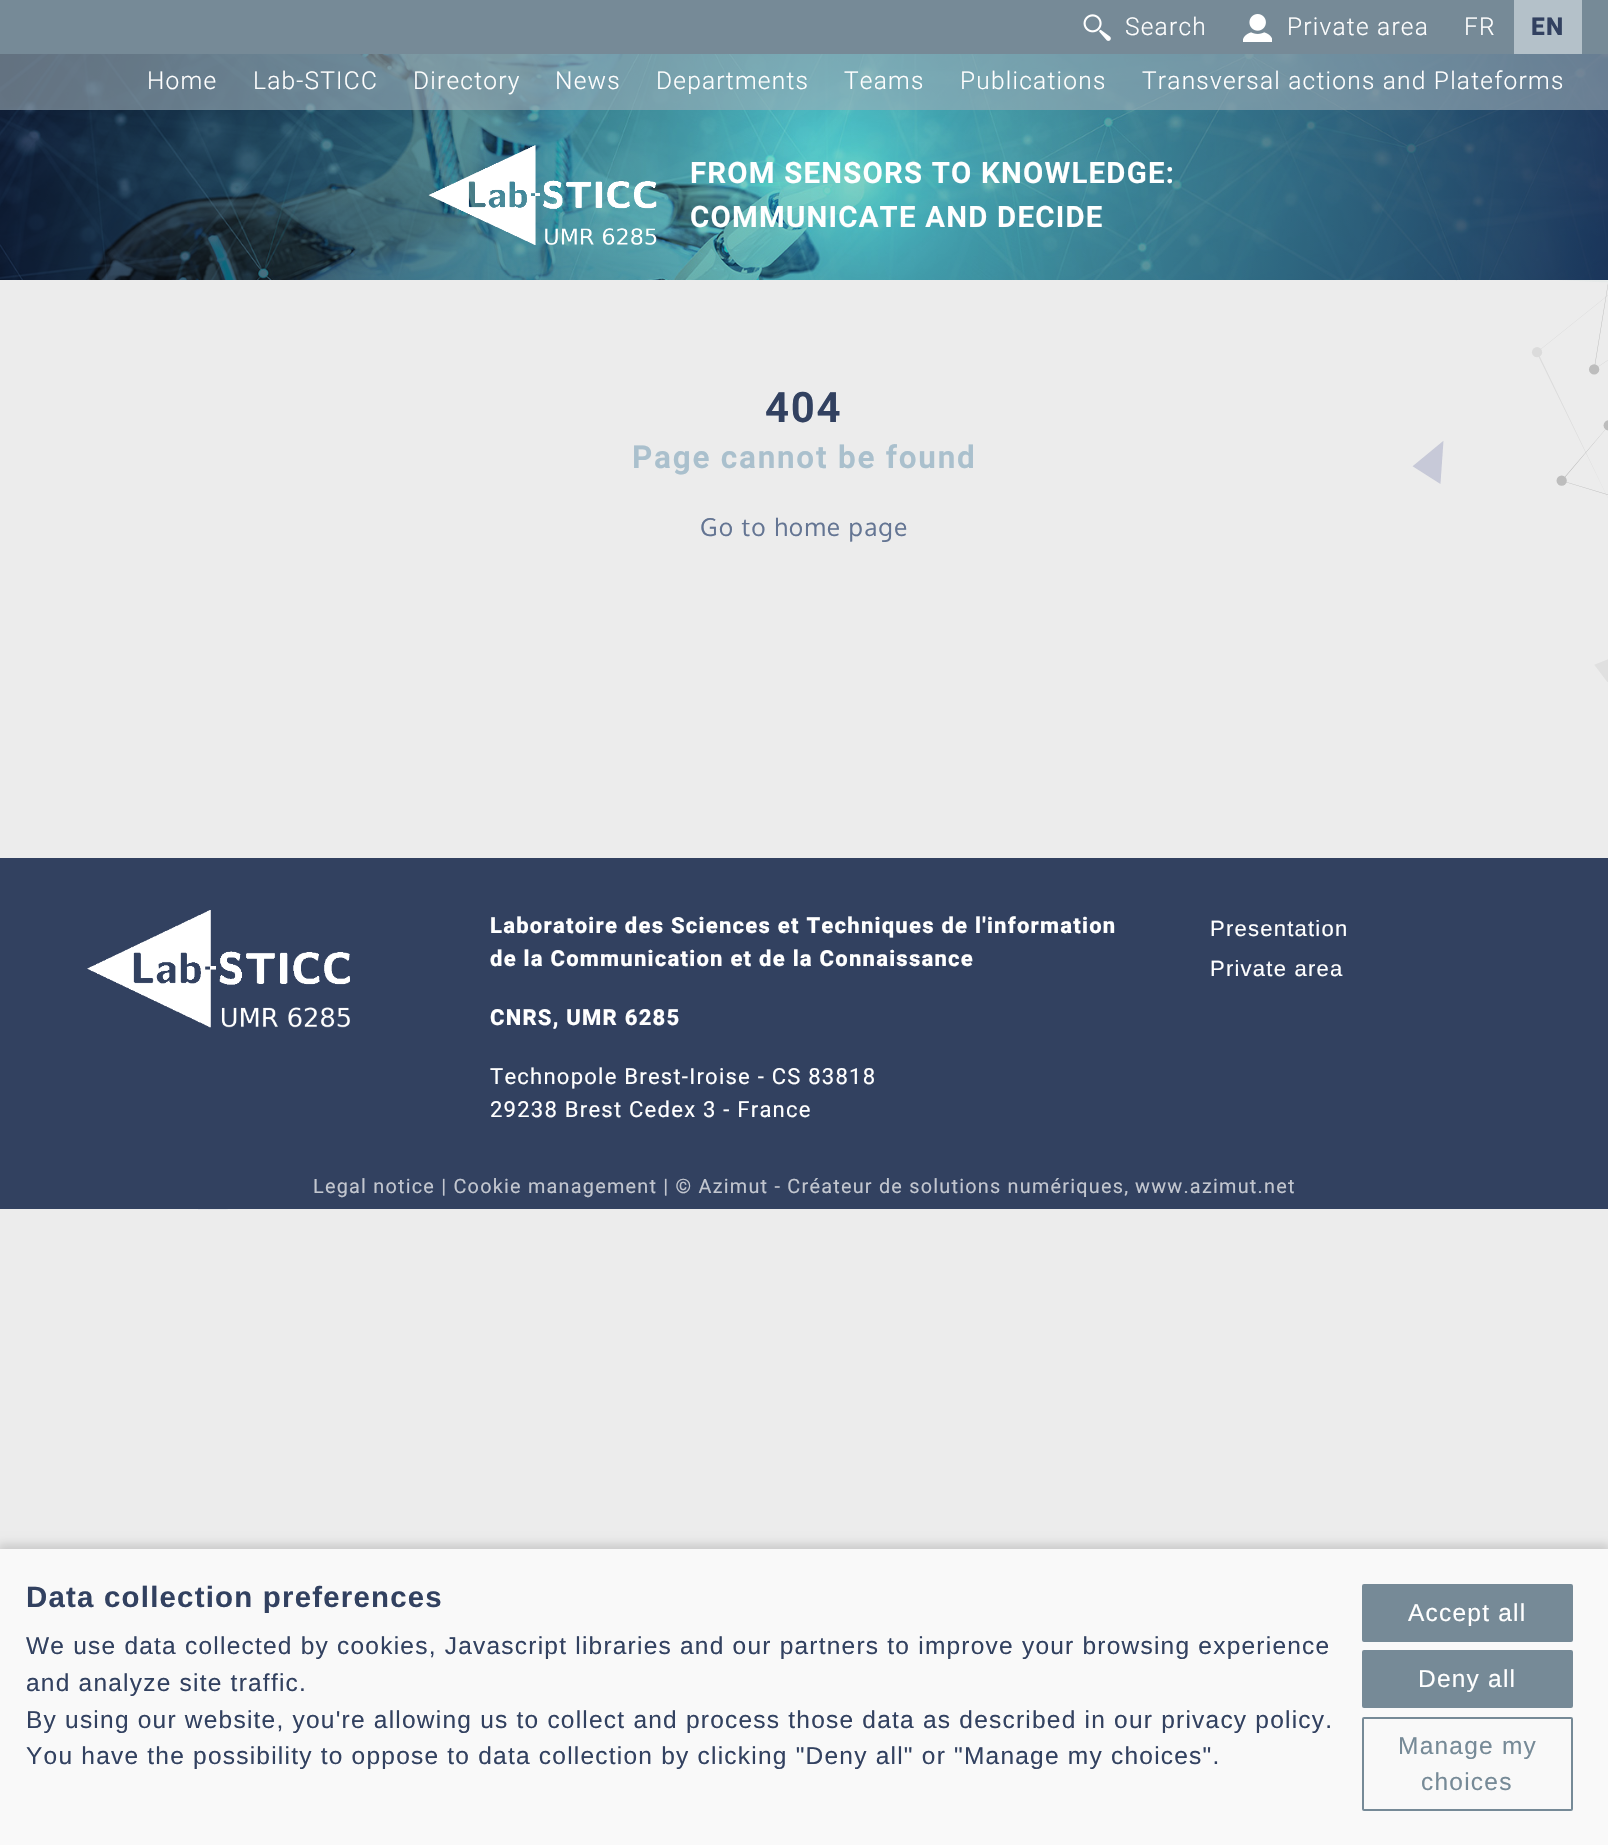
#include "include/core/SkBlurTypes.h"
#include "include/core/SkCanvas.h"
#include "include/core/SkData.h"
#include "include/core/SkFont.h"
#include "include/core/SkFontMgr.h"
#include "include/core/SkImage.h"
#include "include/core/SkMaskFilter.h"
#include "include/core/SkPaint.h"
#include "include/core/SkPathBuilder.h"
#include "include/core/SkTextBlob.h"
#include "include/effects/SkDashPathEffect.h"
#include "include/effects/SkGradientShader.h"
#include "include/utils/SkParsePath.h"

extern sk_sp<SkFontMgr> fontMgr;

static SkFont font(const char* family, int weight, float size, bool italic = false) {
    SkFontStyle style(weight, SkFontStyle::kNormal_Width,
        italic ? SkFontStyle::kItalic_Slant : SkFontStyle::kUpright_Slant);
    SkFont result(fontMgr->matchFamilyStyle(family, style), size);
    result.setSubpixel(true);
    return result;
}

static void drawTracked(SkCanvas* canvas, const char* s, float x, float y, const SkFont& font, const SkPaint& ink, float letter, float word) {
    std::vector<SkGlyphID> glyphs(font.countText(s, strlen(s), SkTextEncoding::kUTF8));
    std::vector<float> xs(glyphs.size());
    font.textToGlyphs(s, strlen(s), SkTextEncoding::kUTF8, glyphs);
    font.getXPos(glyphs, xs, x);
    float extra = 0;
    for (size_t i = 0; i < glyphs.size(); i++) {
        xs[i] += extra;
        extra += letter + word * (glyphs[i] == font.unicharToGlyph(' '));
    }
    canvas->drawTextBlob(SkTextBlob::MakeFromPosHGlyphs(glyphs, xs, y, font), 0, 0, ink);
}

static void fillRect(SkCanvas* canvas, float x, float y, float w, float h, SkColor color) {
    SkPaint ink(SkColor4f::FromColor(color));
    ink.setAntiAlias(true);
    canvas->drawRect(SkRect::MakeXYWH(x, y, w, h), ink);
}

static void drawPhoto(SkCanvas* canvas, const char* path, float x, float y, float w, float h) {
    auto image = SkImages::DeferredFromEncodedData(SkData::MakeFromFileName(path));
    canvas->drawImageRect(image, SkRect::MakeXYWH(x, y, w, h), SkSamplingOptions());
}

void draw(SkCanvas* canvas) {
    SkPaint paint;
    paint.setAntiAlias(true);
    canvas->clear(0xFFECECEC);
    fillRect(canvas, 0, 0, 1608, 54, 0xFF768A97);
    drawPhoto(canvas, "assets/img1.png", 1083, 14, 28, 27);
    SkFont font1 = font("Heebo", 300, 24.5f);
    paint.setColor(0xFFFFFFFF);
    drawTracked(canvas, "Search", 1125, 35, font1, paint, 1.22f, 0);
    drawPhoto(canvas, "assets/img2.png", 1243, 14, 29, 28);
    drawTracked(canvas, "Private area", 1287, 35, font1, paint, 1.22f, 0);
    drawTracked(canvas, "FR", 1464, 35, font1, paint, 1.22f, 0);
    fillRect(canvas, 1514, 0, 68, 54, 0xFFB4C1C9);
    SkFont font2 = font("Heebo", 800, 24.5f);
    paint.setColor(0xFF324160);
    drawTracked(canvas, "EN", 1531, 35, font2, paint, 1.22f, 0);
    drawPhoto(canvas, "assets/img3.png", 0, 54, 1608, 226);
    fillRect(canvas, 0, 54, 1608, 56, 0x999DADB7);
    paint.setColor(0xFFFFFFFF);
    drawTracked(canvas, "Home", 147, 89, font1, paint, 1.22f, 0);
    drawTracked(canvas, "Lab-STICC", 253, 89, font1, paint, 1.22f, 0);
    drawTracked(canvas, "Directory", 413, 89, font1, paint, 1.22f, 0);
    drawTracked(canvas, "News", 555, 89, font1, paint, 1.22f, 0);
    drawTracked(canvas, "Departments", 656, 89, font1, paint, 1.22f, 0);
    drawTracked(canvas, "Teams", 844, 89, font1, paint, 1.22f, 0);
    drawTracked(canvas, "Publications", 960, 89, font1, paint, 1.22f, 0);
    drawTracked(canvas, "Transversal actions and Plateforms", 1142, 89, font1, paint, 1.22f, 0);
    drawPhoto(canvas, "assets/img4.png", 428, 145, 229, 100);
    SkFont font3 = font("Heebo", 600, 29.4f);
    drawTracked(canvas, "FROM SENSORS TO KNOWLEDGE:", 690, 183, font3, paint, 1.22f, 0);
    drawTracked(canvas, "COMMUNICATE AND DECIDE", 690, 227, font3, paint, 1.22f, 0);
    SkFont font4 = font("Heebo", 600, 42);
    paint.setColor(0xFF324160);
    drawTracked(canvas, "404", 765, 422, font4, paint, 1.75f, 0);
    SkFont font5 = font("Heebo", 600, 31.5f);
    paint.setColor(0xFFAAC0CD);
    drawTracked(canvas, "Page cannot be found", 632, 468, font5, paint, 1.75f, 0);
    SkFont font6 = font("Oxygen", 400, 24.5f);
    paint.setColor(0xFF647593);
    drawTracked(canvas, "Go to home page", 700, 536, font6, paint, 1.22f, 0);
    drawPhoto(canvas, "assets/img5.png", 1412, 280, 196, 402);
    drawPhoto(canvas, "assets/img6.png", 198, 1209, 30, 1);
    fillRect(canvas, 0, 858, 1608, 351, 0xFF324160);
    drawPhoto(canvas, "assets/img7.png", 87, 910, 263, 118);
    SkFont font7 = font("Heebo", 800, 22.05f);
    paint.setColor(0xFFFFFFFF);
    drawTracked(canvas, "Laboratoire des Sciences et Techniques de l'information", 490, 933, font7, paint, 1.22f, 0);
    drawTracked(canvas, "de la Communication et de la Connaissance", 490, 966, font7, paint, 1.22f, 0);
    drawTracked(canvas, "CNRS, UMR 6285", 490, 1025, font7, paint, 1.22f, 0);
    SkFont font8 = font("Heebo", 400, 22.05f);
    drawTracked(canvas, "Technopole Brest-Iroise - CS 83818", 490, 1084, font8, paint, 1.22f, 0);
    drawTracked(canvas, "29238 Brest Cedex 3 - France", 490, 1117, font8, paint, 1.22f, 0);
    SkFont font9 = font("Liberation Sans", 400, 22.05f);
    drawTracked(canvas, "Presentation", 1210, 936, font9, paint, 1.22f, 0);
    drawTracked(canvas, "Private area", 1210, 976, font9, paint, 1.22f, 0);
    SkFont font10 = font("Heebo", 400, 19.85f);
    paint.setColor(0xFFC2C6CF);
    drawTracked(canvas, "Legal notice | Cookie management | © Azimut - Créateur de solutions numériques,", 313, 1193, font10, paint, 1.22f, 0);
    drawTracked(canvas, "www.azimut.net", 1135, 1193, font10, paint, 1.22f, 0);
    paint.setColor(0x24000000);
    paint.setMaskFilter(SkMaskFilter::MakeBlur(kNormal_SkBlurStyle, 4.5f));
    canvas->drawRect(SkRect::MakeXYWH(-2, 1544, 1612, 301), paint);
    paint.setMaskFilter(nullptr);
    fillRect(canvas, 0, 1549, 1608, 296, 0xFFF9F9F9);
    SkFont font11 = font("Liberation Sans", 700, 29.4f);
    paint.setColor(0xFF324160);
    drawTracked(canvas, "Data collection preferences", 26, 1607, font11, paint, 1.22f, 0);
    SkFont font12 = font("Liberation Sans", 400, 24.5f);
    drawTracked(canvas, "We use data collected by cookies, Javascript libraries and our partners to improve your browsing experience", 26, 1654, font12, paint, 1.22f, 0);
    drawTracked(canvas, "and analyze site traffic.", 26, 1691, font12, paint, 1.22f, 0);
    drawTracked(canvas, "By using our website, you're allowing us to collect and process those data as described in our privacy policy.", 26, 1728, font12, paint, 1.22f, 0);
    drawTracked(canvas, "You have the possibility to oppose to data collection by clicking \"Deny all\" or \"Manage my choices\".", 26, 1764, font12, paint, 1.22f, 0);
    paint.setColor(0xFF768A97);
    canvas->drawRoundRect(SkRect::MakeXYWH(1363, 1585, 209, 56), 1, 1, paint);
    paint.setStroke(true);
    paint.setStrokeWidth(2);
    canvas->drawRoundRect(SkRect::MakeXYWH(1363, 1585, 209, 56), 1, 1, paint);
    paint.setStroke(false);
    paint.setColor(0xFFFFFFFF);
    drawTracked(canvas, "Accept all", 1408, 1621, font12, paint, 1.22f, 0);
    paint.setColor(0xFF768A97);
    canvas->drawRoundRect(SkRect::MakeXYWH(1363, 1651, 209, 56), 1, 1, paint);
    paint.setStroke(true);
    canvas->drawRoundRect(SkRect::MakeXYWH(1363, 1651, 209, 56), 1, 1, paint);
    paint.setStroke(false);
    paint.setColor(0xFFFFFFFF);
    drawTracked(canvas, "Deny all", 1418, 1687, font12, paint, 1.22f, 0);
    paint.setStroke(true);
    paint.setColor(0xFF768A97);
    canvas->drawRoundRect(SkRect::MakeXYWH(1363, 1718, 209, 92), 1, 1, paint);
    paint.setStroke(false);
    drawTracked(canvas, "Manage my", 1398, 1754, font12, paint, 1.22f, 0);
    drawTracked(canvas, "choices", 1421, 1790, font12, paint, 1.22f, 0);
}
